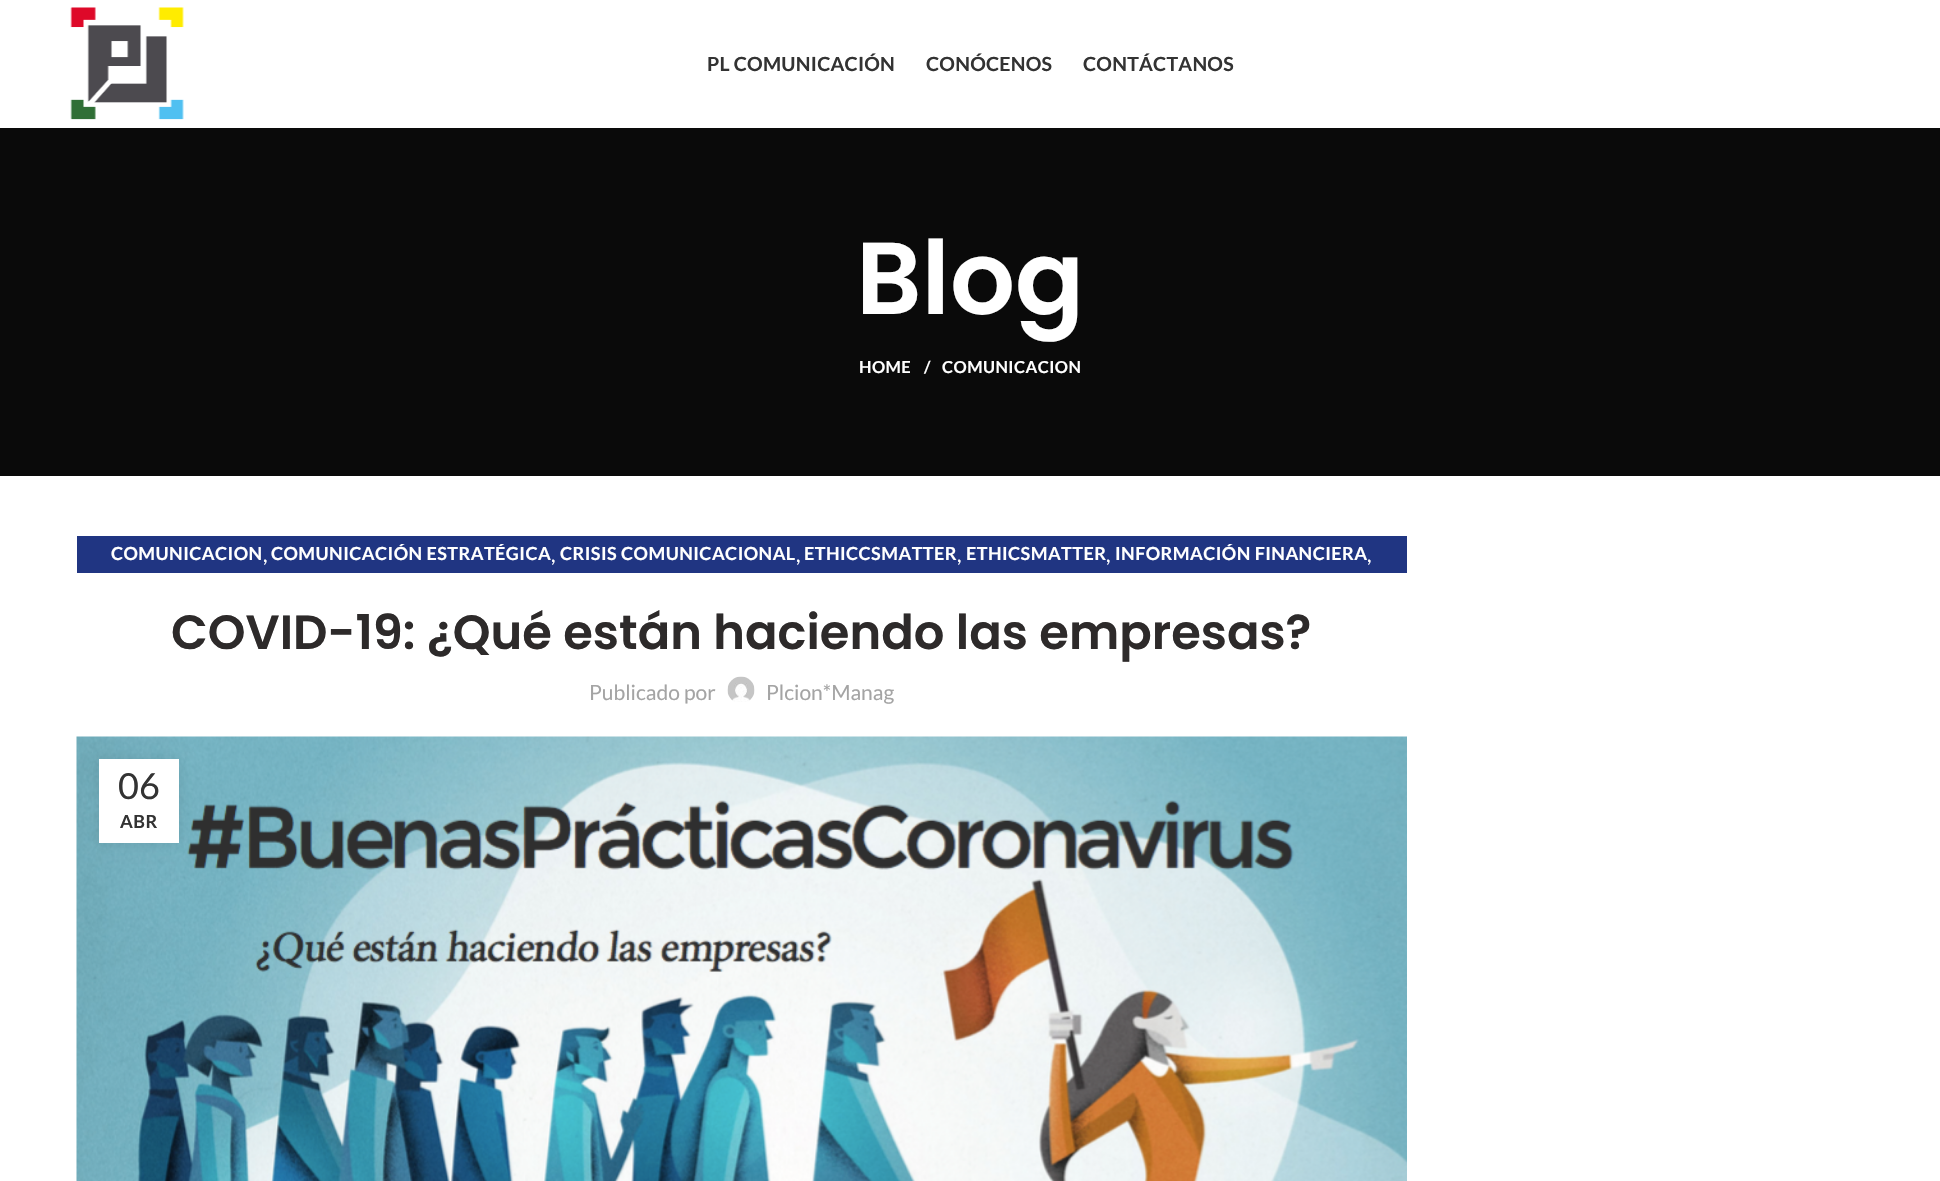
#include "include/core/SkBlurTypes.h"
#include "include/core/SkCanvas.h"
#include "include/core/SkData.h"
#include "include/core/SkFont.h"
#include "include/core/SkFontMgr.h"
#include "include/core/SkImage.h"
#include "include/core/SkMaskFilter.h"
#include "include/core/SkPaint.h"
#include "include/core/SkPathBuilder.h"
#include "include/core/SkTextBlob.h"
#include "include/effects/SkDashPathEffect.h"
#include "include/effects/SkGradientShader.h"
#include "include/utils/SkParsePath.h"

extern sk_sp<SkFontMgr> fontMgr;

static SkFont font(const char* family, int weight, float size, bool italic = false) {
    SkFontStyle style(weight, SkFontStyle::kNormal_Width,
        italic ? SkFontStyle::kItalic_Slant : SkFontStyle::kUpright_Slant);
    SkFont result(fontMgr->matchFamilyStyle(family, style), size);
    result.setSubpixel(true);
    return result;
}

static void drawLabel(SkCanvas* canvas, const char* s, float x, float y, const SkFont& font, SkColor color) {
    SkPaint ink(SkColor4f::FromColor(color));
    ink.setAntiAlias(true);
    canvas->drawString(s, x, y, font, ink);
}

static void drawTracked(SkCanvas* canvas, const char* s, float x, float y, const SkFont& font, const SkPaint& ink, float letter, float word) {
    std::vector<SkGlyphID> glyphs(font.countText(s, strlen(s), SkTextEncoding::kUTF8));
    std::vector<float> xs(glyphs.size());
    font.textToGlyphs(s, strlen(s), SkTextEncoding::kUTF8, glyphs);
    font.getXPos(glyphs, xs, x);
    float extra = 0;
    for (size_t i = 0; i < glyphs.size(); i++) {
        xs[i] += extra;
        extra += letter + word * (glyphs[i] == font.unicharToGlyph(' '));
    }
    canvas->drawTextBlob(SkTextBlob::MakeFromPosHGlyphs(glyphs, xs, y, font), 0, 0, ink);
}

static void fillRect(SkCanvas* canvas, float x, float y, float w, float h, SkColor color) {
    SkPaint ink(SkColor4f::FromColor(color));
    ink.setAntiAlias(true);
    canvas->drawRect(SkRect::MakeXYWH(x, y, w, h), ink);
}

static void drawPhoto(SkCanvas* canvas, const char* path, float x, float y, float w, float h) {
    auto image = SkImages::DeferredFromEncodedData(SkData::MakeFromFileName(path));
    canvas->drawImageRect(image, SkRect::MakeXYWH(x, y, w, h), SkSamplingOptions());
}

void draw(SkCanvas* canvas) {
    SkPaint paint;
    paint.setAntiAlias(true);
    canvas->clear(0xFFFFFFFF);
    drawPhoto(canvas, "assets/img1.png", 70, 7, 114, 113);
    SkFont font1 = font("Lato", 700, 19.5f);
    paint.setColor(0xFF333333);
    drawTracked(canvas, "PL COMUNICACIÓN", 707, 71, font1, paint, 0.25f, 0);
    drawTracked(canvas, "CONÓCENOS", 926, 71, font1, paint, 0.25f, 0);
    drawTracked(canvas, "CONTÁCTANOS", 1083, 71, font1, paint, 0.25f, 0);
    fillRect(canvas, 0, 128, 1940, 348, 0xFF0A0A0A);
    SkFont font2 = font("Poppins", 600, 102);
    drawLabel(canvas, "Blog", 856, 314, font2, 0xFFFFFFFF);
    SkFont font3 = font("Lato", 700, 16.5f);
    paint.setColor(0xFFFFFFFF);
    drawTracked(canvas, "HOME", 859, 373, font3, paint, 0.45f, 0);
    drawTracked(canvas, "/", 924, 373, font3, paint, 0.45f, 0);
    drawTracked(canvas, "COMUNICACION", 942, 373, font3, paint, 0.45f, 0);
    fillRect(canvas, 77, 536, 1330, 37, 0xFF203582);
    SkFont font4 = font("Lato", 700, 18);
    drawTracked(canvas, "COMUNICACION", 111, 560, font4, paint, 0.45f, 0);
    drawTracked(canvas, "COMUNICACIÓN ESTRATÉGICA", 271, 560, font4, paint, 0.45f, 0);
    drawTracked(canvas, "CRISIS COMUNICACIONAL", 560, 560, font4, paint, 0.45f, 0);
    drawTracked(canvas, "ETHICCSMATTER", 804, 560, font4, paint, 0.45f, 0);
    drawTracked(canvas, "ETHICSMATTER", 966, 560, font4, paint, 0.45f, 0);
    drawTracked(canvas, "INFORMACIÓN FINANCIERA", 1115, 560, font4, paint, 0.45f, 0);
    SkFont font5 = font("Lato", 400, 21);
    drawLabel(canvas, ",", 263, 562, font5, 0xFFFFFFFF);
    drawLabel(canvas, ",", 551, 562, font5, 0xFFFFFFFF);
    drawLabel(canvas, ",", 796, 562, font5, 0xFFFFFFFF);
    drawLabel(canvas, ",", 957, 562, font5, 0xFFFFFFFF);
    drawLabel(canvas, ",", 1106, 562, font5, 0xFFFFFFFF);
    drawLabel(canvas, ",", 1367, 562, font5, 0xFFFFFFFF);
    SkFont font6 = font("Poppins", 600, 48);
    drawLabel(canvas, "COVID-19: ¿Qué están haciendo las empresas?", 171, 649, font6, 0xFF2D2A2A);
    drawLabel(canvas, "Publicado por", 589, 700, font5, 0xFFA4A4A4);
    drawPhoto(canvas, "assets/img2.png", 727, 676, 28, 26);
    drawLabel(canvas, "Plcion*Manag", 766, 700, font5, 0xFFA4A4A4);
    drawPhoto(canvas, "assets/img3.png", 76, 736, 1331, 445);
    paint.setColor(0x1A000000);
    paint.setMaskFilter(SkMaskFilter::MakeBlur(kNormal_SkBlurStyle, 7));
    canvas->drawRect(SkRect::MakeXYWH(99, 759, 80, 84), paint);
    paint.setMaskFilter(nullptr);
    fillRect(canvas, 99, 759, 80, 84, 0xFFFFFFFF);
    SkFont font7 = font("Lato", 400, 36);
    drawLabel(canvas, "06", 118, 799, font7, 0xFF333333);
    paint.setColor(0xFF333333);
    drawTracked(canvas, "ABR", 120, 828, font4, paint, 0.45f, 0);
}
